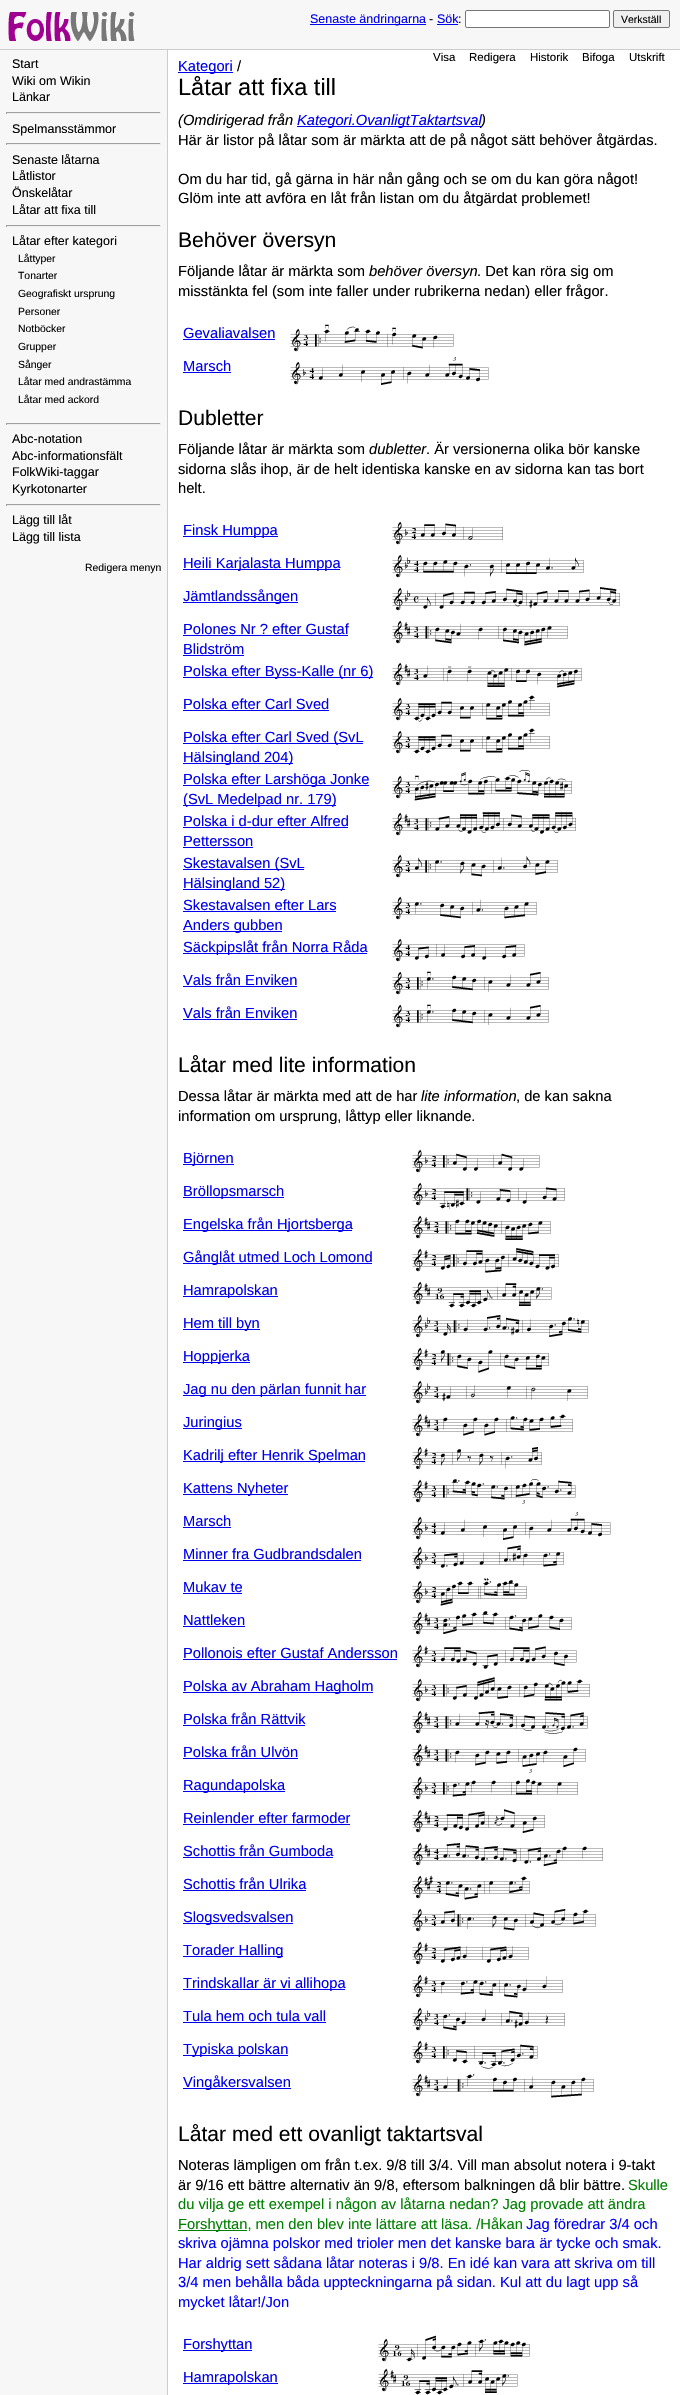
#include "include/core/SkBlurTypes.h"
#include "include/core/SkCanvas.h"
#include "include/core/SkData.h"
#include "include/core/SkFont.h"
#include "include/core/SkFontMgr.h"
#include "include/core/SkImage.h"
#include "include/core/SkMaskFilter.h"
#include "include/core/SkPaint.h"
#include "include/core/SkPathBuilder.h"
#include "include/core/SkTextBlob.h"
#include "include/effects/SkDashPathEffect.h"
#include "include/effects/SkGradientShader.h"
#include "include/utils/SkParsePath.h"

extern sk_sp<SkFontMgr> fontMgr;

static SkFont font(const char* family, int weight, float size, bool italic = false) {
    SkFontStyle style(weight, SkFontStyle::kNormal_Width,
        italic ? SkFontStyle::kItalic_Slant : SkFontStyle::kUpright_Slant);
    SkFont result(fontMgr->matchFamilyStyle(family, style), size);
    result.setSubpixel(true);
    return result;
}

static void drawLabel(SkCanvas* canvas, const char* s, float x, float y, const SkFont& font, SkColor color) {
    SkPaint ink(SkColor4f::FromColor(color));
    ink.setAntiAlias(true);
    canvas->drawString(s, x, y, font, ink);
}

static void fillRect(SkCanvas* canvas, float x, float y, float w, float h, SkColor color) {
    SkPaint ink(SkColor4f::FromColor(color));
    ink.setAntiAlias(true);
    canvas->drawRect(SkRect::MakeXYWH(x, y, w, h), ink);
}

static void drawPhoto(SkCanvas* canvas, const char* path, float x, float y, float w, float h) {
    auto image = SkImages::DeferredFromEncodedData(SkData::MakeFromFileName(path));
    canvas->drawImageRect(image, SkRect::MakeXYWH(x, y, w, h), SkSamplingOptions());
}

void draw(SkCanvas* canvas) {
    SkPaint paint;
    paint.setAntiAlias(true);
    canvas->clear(0xFFF7F7F7);
    fillRect(canvas, 0, 49, 680, 1, 0xFFCCCCCC);
    drawPhoto(canvas, "assets/img1.png", 8, 12, 127, 29);
    fillRect(canvas, 310, 24, 116, 1, 0xFF0000EE);
    SkFont font1 = font("Liberation Sans", 400, 12.5f);
    drawLabel(canvas, "Senaste ändringarna", 310, 23, font1, 0xFF0000EE);
    drawLabel(canvas, "-", 429, 23, font1, 0xFF000000);
    drawLabel(canvas, "Sök", 437, 23, font1, 0xFF0000EE);
    fillRect(canvas, 437, 24, 21, 1, 0xFF0000EE);
    drawLabel(canvas, ":", 458, 23, font1, 0xFF000000);
    paint.setColor(0xFFFFFFFF);
    canvas->drawRoundRect(SkRect::MakeXYWH(465.5f, 10.5f, 144, 17), 1.5f, 1.5f, paint);
    paint.setStroke(true);
    paint.setStrokeWidth(1);
    paint.setColor(0xFF767676);
    canvas->drawRoundRect(SkRect::MakeXYWH(465.5f, 10.5f, 144, 17), 1.5f, 1.5f, paint);
    paint.setStroke(false);
    paint.setColor(0xFFEFEFEF);
    canvas->drawRoundRect(SkRect::MakeXYWH(613.5f, 10.5f, 56, 17), 1.5f, 1.5f, paint);
    paint.setStroke(true);
    paint.setColor(0xFF767676);
    canvas->drawRoundRect(SkRect::MakeXYWH(613.5f, 10.5f, 56, 17), 1.5f, 1.5f, paint);
    SkFont font2 = font("Liberation Sans", 400, 10.5f);
    drawLabel(canvas, "Verkställ", 621, 23, font2, 0xFF000000);
    fillRect(canvas, 167, 50, 1, 2345, 0xFFCCCCCC);
    drawLabel(canvas, "Start", 12, 68, font1, 0xFF000000);
    drawLabel(canvas, "Wiki om Wikin", 12, 85, font1, 0xFF000000);
    drawLabel(canvas, "Länkar", 12, 101, font1, 0xFF000000);
    fillRect(canvas, 6, 112, 155, 1, 0xFF9F9F9F);
    fillRect(canvas, 160, 112, 1, 2, 0xFFEEEEEE);
    fillRect(canvas, 6, 113, 155, 1, 0xFFEEEEEE);
    fillRect(canvas, 6, 112, 1, 2, 0xFF9F9F9F);
    drawLabel(canvas, "Spelmansstämmor", 12, 133, font1, 0xFF000000);
    fillRect(canvas, 6, 143, 155, 1, 0xFF9F9F9F);
    fillRect(canvas, 160, 143, 1, 2, 0xFFEEEEEE);
    fillRect(canvas, 6, 144, 155, 1, 0xFFEEEEEE);
    fillRect(canvas, 6, 143, 1, 2, 0xFF9F9F9F);
    drawLabel(canvas, "Senaste låtarna", 12, 164, font1, 0xFF000000);
    drawLabel(canvas, "Låtlistor", 12, 180, font1, 0xFF000000);
    drawLabel(canvas, "Önskelåtar", 12, 197, font1, 0xFF000000);
    drawLabel(canvas, "Låtar att fixa till", 12, 214, font1, 0xFF000000);
    fillRect(canvas, 6, 225, 155, 1, 0xFF9F9F9F);
    fillRect(canvas, 160, 225, 1, 2, 0xFFEEEEEE);
    fillRect(canvas, 6, 226, 155, 1, 0xFFEEEEEE);
    fillRect(canvas, 6, 225, 1, 2, 0xFF9F9F9F);
    drawLabel(canvas, "Låtar efter kategori", 12, 245, font1, 0xFF000000);
    SkFont font3 = font("Liberation Sans", 400, 10.4f);
    drawLabel(canvas, "Låttyper", 18, 262, font3, 0xFF000000);
    drawLabel(canvas, "Tonarter", 18, 279, font3, 0xFF000000);
    drawLabel(canvas, "Geografiskt ursprung", 18, 297, font3, 0xFF000000);
    drawLabel(canvas, "Personer", 18, 315, font3, 0xFF000000);
    drawLabel(canvas, "Notböcker", 18, 332, font3, 0xFF000000);
    drawLabel(canvas, "Grupper", 18, 350, font3, 0xFF000000);
    drawLabel(canvas, "Sånger", 18, 368, font3, 0xFF000000);
    drawLabel(canvas, "Låtar med andrastämma", 18, 385, font3, 0xFF000000);
    drawLabel(canvas, "Låtar med ackord", 18, 403, font3, 0xFF000000);
    fillRect(canvas, 6, 423, 155, 1, 0xFF9F9F9F);
    fillRect(canvas, 160, 423, 1, 2, 0xFFEEEEEE);
    fillRect(canvas, 6, 424, 155, 1, 0xFFEEEEEE);
    fillRect(canvas, 6, 423, 1, 2, 0xFF9F9F9F);
    drawLabel(canvas, "Abc-notation", 12, 443, font1, 0xFF000000);
    drawLabel(canvas, "Abc-informationsfält", 12, 460, font1, 0xFF000000);
    drawLabel(canvas, "FolkWiki-taggar", 12, 476, font1, 0xFF000000);
    drawLabel(canvas, "Kyrkotonarter", 12, 493, font1, 0xFF000000);
    fillRect(canvas, 6, 504, 155, 1, 0xFF9F9F9F);
    fillRect(canvas, 160, 504, 1, 2, 0xFFEEEEEE);
    fillRect(canvas, 6, 505, 155, 1, 0xFFEEEEEE);
    fillRect(canvas, 6, 504, 1, 2, 0xFF9F9F9F);
    drawLabel(canvas, "Lägg till låt", 12, 524, font1, 0xFF000000);
    drawLabel(canvas, "Lägg till lista", 12, 541, font1, 0xFF000000);
    drawLabel(canvas, "Redigera menyn", 85, 571, font3, 0xFF000000);
    fillRect(canvas, 168, 50, 512, 2345, 0xFFFFFFFF);
    SkFont font4 = font("Liberation Sans", 400, 11.5f);
    drawLabel(canvas, "Visa", 433, 61, font4, 0xFF000000);
    drawLabel(canvas, "Redigera", 469, 61, font4, 0xFF000000);
    drawLabel(canvas, "Historik", 530, 61, font4, 0xFF000000);
    drawLabel(canvas, "Bifoga", 582, 61, font4, 0xFF000000);
    drawLabel(canvas, "Utskrift", 629, 61, font4, 0xFF000000);
    fillRect(canvas, 178, 72, 55, 1, 0xFF0000EE);
    SkFont font5 = font("Liberation Sans", 400, 14.7f);
    drawLabel(canvas, "Kategori", 178, 71, font5, 0xFF0000EE);
    drawLabel(canvas, "/", 237, 71, font5, 0xFF000000);
    SkFont font6 = font("Liberation Sans", 400, 23.5f);
    drawLabel(canvas, "Låtar att fixa till", 178, 95, font6, 0xFF000000);
    SkFont font7 = font("Liberation Sans", 400, 14.7f, true);
    drawLabel(canvas, "(Omdirigerad från", 178, 125, font7, 0xFF000000);
    fillRect(canvas, 297, 126, 184, 1, 0xFF0000EE);
    drawLabel(canvas, "Kategori.OvanligtTaktartsval", 297, 125, font7, 0xFF0000EE);
    drawLabel(canvas, ")", 481, 125, font7, 0xFF000000);
    drawLabel(canvas, "Här är listor på låtar som är märkta att de på något sätt behöver åtgärdas.", 178, 145, font5, 0xFF000000);
    drawLabel(canvas, "Om du har tid, gå gärna in här nån gång och se om du kan göra något!", 178, 184, font5, 0xFF000000);
    drawLabel(canvas, "Glöm inte att avföra en låt från listan om du åtgärdat problemet!", 178, 203, font5, 0xFF000000);
    SkFont font8 = font("Liberation Sans", 400, 21.1f);
    drawLabel(canvas, "Behöver översyn", 178, 247, font8, 0xFF000000);
    drawLabel(canvas, "Följande låtar är märkta som", 178, 276, font5, 0xFF000000);
    drawLabel(canvas, "behöver översyn", 369, 276, font7, 0xFF000000);
    drawLabel(canvas, ". Det kan röra sig om", 477, 276, font5, 0xFF000000);
    drawLabel(canvas, "misstänkta fel (som inte faller under rubrikerna nedan) eller frågor.", 178, 296, font5, 0xFF000000);
    drawLabel(canvas, "Gevaliavalsen", 183, 338, font5, 0xFF0000EE);
    fillRect(canvas, 183, 339, 92, 1, 0xFF0000EE);
    drawPhoto(canvas, "assets/img2.png", 290, 324, 164, 28);
    drawLabel(canvas, "Marsch", 183, 371, font5, 0xFF0000EE);
    fillRect(canvas, 183, 372, 48, 1, 0xFF0000EE);
    drawPhoto(canvas, "assets/img3.png", 290, 357, 199, 28);
    drawLabel(canvas, "Dubletter", 178, 425, font8, 0xFF000000);
    drawLabel(canvas, "Följande låtar är märkta som", 178, 454, font5, 0xFF000000);
    drawLabel(canvas, "dubletter", 369, 454, font7, 0xFF000000);
    drawLabel(canvas, ". Är versionerna olika bör kanske", 426, 454, font5, 0xFF000000);
    drawLabel(canvas, "sidorna slås ihop, är de helt identiska kanske en av sidorna kan tas bort", 178, 474, font5, 0xFF000000);
    drawLabel(canvas, "helt.", 178, 493, font5, 0xFF000000);
    fillRect(canvas, 183, 536, 95, 1, 0xFF0000EE);
    drawLabel(canvas, "Finsk Humppa", 183, 535, font5, 0xFF0000EE);
    drawPhoto(canvas, "assets/img4.png", 392, 521, 111, 24);
    fillRect(canvas, 183, 569, 157, 1, 0xFF0000EE);
    drawLabel(canvas, "Heili Karjalasta Humppa", 183, 568, font5, 0xFF0000EE);
    drawPhoto(canvas, "assets/img5.png", 392, 554, 192, 24);
    fillRect(canvas, 183, 602, 115, 1, 0xFF0000EE);
    drawLabel(canvas, "Jämtlandssången", 183, 601, font5, 0xFF0000EE);
    drawPhoto(canvas, "assets/img6.png", 392, 587, 228, 24);
    drawLabel(canvas, "Polones Nr ? efter Gustaf", 183, 634, font5, 0xFF0000EE);
    fillRect(canvas, 183, 635, 165, 1, 0xFF0000EE);
    drawLabel(canvas, "Blidström", 183, 654, font5, 0xFF0000EE);
    fillRect(canvas, 183, 655, 61, 1, 0xFF0000EE);
    drawPhoto(canvas, "assets/img7.png", 392, 620, 176, 26);
    fillRect(canvas, 183, 677, 190, 1, 0xFF0000EE);
    drawLabel(canvas, "Polska efter Byss-Kalle (nr 6)", 183, 676, font5, 0xFF0000EE);
    drawPhoto(canvas, "assets/img8.png", 392, 662, 190, 26);
    drawLabel(canvas, "Polska efter Carl Sved", 183, 709, font5, 0xFF0000EE);
    fillRect(canvas, 183, 710, 146, 1, 0xFF0000EE);
    drawPhoto(canvas, "assets/img9.png", 392, 695, 158, 27);
    fillRect(canvas, 183, 743, 180, 1, 0xFF0000EE);
    drawLabel(canvas, "Polska efter Carl Sved (SvL", 183, 742, font5, 0xFF0000EE);
    fillRect(canvas, 183, 763, 110, 1, 0xFF0000EE);
    drawLabel(canvas, "Hälsingland 204)", 183, 762, font5, 0xFF0000EE);
    drawPhoto(canvas, "assets/img10.png", 392, 728, 158, 26);
    fillRect(canvas, 183, 785, 186, 1, 0xFF0000EE);
    drawLabel(canvas, "Polska efter Larshöga Jonke", 183, 784, font5, 0xFF0000EE);
    fillRect(canvas, 183, 805, 153, 1, 0xFF0000EE);
    drawLabel(canvas, "(SvL Medelpad nr. 179)", 183, 804, font5, 0xFF0000EE);
    drawPhoto(canvas, "assets/img11.png", 392, 770, 180, 31);
    drawLabel(canvas, "Polska i d-dur efter Alfred", 183, 826, font5, 0xFF0000EE);
    fillRect(canvas, 183, 827, 165, 1, 0xFF0000EE);
    drawLabel(canvas, "Pettersson", 183, 846, font5, 0xFF0000EE);
    fillRect(canvas, 183, 847, 70, 1, 0xFF0000EE);
    drawPhoto(canvas, "assets/img12.png", 392, 812, 184, 24);
    fillRect(canvas, 183, 869, 121, 1, 0xFF0000EE);
    drawLabel(canvas, "Skestavalsen (SvL", 183, 868, font5, 0xFF0000EE);
    fillRect(canvas, 183, 889, 102, 1, 0xFF0000EE);
    drawLabel(canvas, "Hälsingland 52)", 183, 888, font5, 0xFF0000EE);
    drawPhoto(canvas, "assets/img13.png", 392, 854, 166, 24);
    drawLabel(canvas, "Skestavalsen efter Lars", 183, 910, font5, 0xFF0000EE);
    fillRect(canvas, 183, 911, 153, 1, 0xFF0000EE);
    fillRect(canvas, 183, 931, 99, 1, 0xFF0000EE);
    drawLabel(canvas, "Anders gubben", 183, 930, font5, 0xFF0000EE);
    drawPhoto(canvas, "assets/img14.png", 392, 896, 145, 24);
    fillRect(canvas, 183, 953, 184, 1, 0xFF0000EE);
    drawLabel(canvas, "Säckpipslåt från Norra Råda", 183, 952, font5, 0xFF0000EE);
    drawPhoto(canvas, "assets/img15.png", 392, 938, 133, 24);
    drawLabel(canvas, "Vals från Enviken", 183, 985, font5, 0xFF0000EE);
    fillRect(canvas, 183, 986, 114, 1, 0xFF0000EE);
    drawPhoto(canvas, "assets/img16.png", 392, 971, 157, 24);
    drawLabel(canvas, "Vals från Enviken", 183, 1018, font5, 0xFF0000EE);
    fillRect(canvas, 183, 1019, 114, 1, 0xFF0000EE);
    drawPhoto(canvas, "assets/img16.png", 392, 1004, 157, 24);
    drawLabel(canvas, "Låtar med lite information", 178, 1072, font8, 0xFF000000);
    drawLabel(canvas, "Dessa låtar är märkta med att de har", 178, 1101, font5, 0xFF000000);
    drawLabel(canvas, "lite information", 421, 1101, font7, 0xFF000000);
    drawLabel(canvas, ", de kan sakna", 516, 1101, font5, 0xFF000000);
    drawLabel(canvas, "information om ursprung, låttyp eller liknande.", 178, 1121, font5, 0xFF000000);
    fillRect(canvas, 183, 1164, 51, 1, 0xFF0000EE);
    drawLabel(canvas, "Björnen", 183, 1163, font5, 0xFF0000EE);
    drawPhoto(canvas, "assets/img17.png", 412, 1149, 128, 24);
    fillRect(canvas, 183, 1197, 101, 1, 0xFF0000EE);
    drawLabel(canvas, "Bröllopsmarsch", 183, 1196, font5, 0xFF0000EE);
    drawPhoto(canvas, "assets/img18.png", 412, 1182, 153, 27);
    fillRect(canvas, 183, 1230, 169, 1, 0xFF0000EE);
    drawLabel(canvas, "Engelska från Hjortsberga", 183, 1229, font5, 0xFF0000EE);
    drawPhoto(canvas, "assets/img19.png", 412, 1215, 139, 25);
    fillRect(canvas, 183, 1263, 189, 1, 0xFF0000EE);
    drawLabel(canvas, "Gånglåt utmed Loch Lomond", 183, 1262, font5, 0xFF0000EE);
    drawPhoto(canvas, "assets/img20.png", 412, 1248, 147, 25);
    fillRect(canvas, 183, 1296, 95, 1, 0xFF0000EE);
    drawLabel(canvas, "Hamrapolskan", 183, 1295, font5, 0xFF0000EE);
    drawPhoto(canvas, "assets/img21.png", 412, 1281, 140, 27);
    fillRect(canvas, 183, 1329, 77, 1, 0xFF0000EE);
    drawLabel(canvas, "Hem till byn", 183, 1328, font5, 0xFF0000EE);
    drawPhoto(canvas, "assets/img22.png", 412, 1314, 177, 24);
    fillRect(canvas, 183, 1362, 67, 1, 0xFF0000EE);
    drawLabel(canvas, "Hoppjerka", 183, 1361, font5, 0xFF0000EE);
    drawPhoto(canvas, "assets/img23.png", 412, 1347, 137, 26);
    fillRect(canvas, 183, 1395, 183, 1, 0xFF0000EE);
    drawLabel(canvas, "Jag nu den pärlan funnit har", 183, 1394, font5, 0xFF0000EE);
    drawPhoto(canvas, "assets/img24.png", 412, 1380, 176, 24);
    fillRect(canvas, 183, 1428, 59, 1, 0xFF0000EE);
    drawLabel(canvas, "Juringius", 183, 1427, font5, 0xFF0000EE);
    drawPhoto(canvas, "assets/img25.png", 412, 1413, 161, 24);
    fillRect(canvas, 183, 1461, 182, 1, 0xFF0000EE);
    drawLabel(canvas, "Kadrilj efter Henrik Spelman", 183, 1460, font5, 0xFF0000EE);
    drawPhoto(canvas, "assets/img26.png", 412, 1446, 130, 24);
    fillRect(canvas, 183, 1494, 105, 1, 0xFF0000EE);
    drawLabel(canvas, "Kattens Nyheter", 183, 1493, font5, 0xFF0000EE);
    drawPhoto(canvas, "assets/img27.png", 412, 1479, 164, 25);
    drawLabel(canvas, "Marsch", 183, 1526, font5, 0xFF0000EE);
    fillRect(canvas, 183, 1527, 48, 1, 0xFF0000EE);
    drawPhoto(canvas, "assets/img3.png", 412, 1512, 199, 28);
    drawLabel(canvas, "Minner fra Gudbrandsdalen", 183, 1559, font5, 0xFF0000EE);
    fillRect(canvas, 183, 1560, 178, 1, 0xFF0000EE);
    drawPhoto(canvas, "assets/img28.png", 412, 1545, 152, 25);
    drawLabel(canvas, "Mukav te", 183, 1592, font5, 0xFF0000EE);
    fillRect(canvas, 183, 1593, 59, 1, 0xFF0000EE);
    drawPhoto(canvas, "assets/img29.png", 412, 1578, 115, 28);
    drawLabel(canvas, "Nattleken", 183, 1625, font5, 0xFF0000EE);
    fillRect(canvas, 183, 1626, 62, 1, 0xFF0000EE);
    drawPhoto(canvas, "assets/img30.png", 412, 1611, 160, 24);
    drawLabel(canvas, "Pollonois efter Gustaf Andersson", 183, 1658, font5, 0xFF0000EE);
    fillRect(canvas, 183, 1659, 214, 1, 0xFF0000EE);
    drawPhoto(canvas, "assets/img31.png", 412, 1644, 165, 25);
    fillRect(canvas, 183, 1692, 190, 1, 0xFF0000EE);
    drawLabel(canvas, "Polska av Abraham Hagholm", 183, 1691, font5, 0xFF0000EE);
    drawPhoto(canvas, "assets/img32.png", 412, 1677, 178, 25);
    drawLabel(canvas, "Polska från Rättvik", 183, 1724, font5, 0xFF0000EE);
    fillRect(canvas, 183, 1725, 122, 1, 0xFF0000EE);
    drawPhoto(canvas, "assets/img33.png", 412, 1710, 176, 24);
    drawLabel(canvas, "Polska från Ulvön", 183, 1757, font5, 0xFF0000EE);
    fillRect(canvas, 183, 1758, 115, 1, 0xFF0000EE);
    drawPhoto(canvas, "assets/img34.png", 412, 1743, 174, 30);
    fillRect(canvas, 183, 1791, 102, 1, 0xFF0000EE);
    drawLabel(canvas, "Ragundapolska", 183, 1790, font5, 0xFF0000EE);
    drawPhoto(canvas, "assets/img35.png", 412, 1776, 166, 24);
    drawLabel(canvas, "Reinlender efter farmoder", 183, 1823, font5, 0xFF0000EE);
    fillRect(canvas, 183, 1824, 167, 1, 0xFF0000EE);
    drawPhoto(canvas, "assets/img36.png", 412, 1809, 133, 24);
    drawLabel(canvas, "Schottis från Gumboda", 183, 1856, font5, 0xFF0000EE);
    fillRect(canvas, 183, 1857, 150, 1, 0xFF0000EE);
    drawPhoto(canvas, "assets/img37.png", 412, 1842, 191, 24);
    drawLabel(canvas, "Schottis från Ulrika", 183, 1889, font5, 0xFF0000EE);
    fillRect(canvas, 183, 1890, 123, 1, 0xFF0000EE);
    drawPhoto(canvas, "assets/img38.png", 412, 1875, 118, 25);
    fillRect(canvas, 183, 1923, 110, 1, 0xFF0000EE);
    drawLabel(canvas, "Slogsvedsvalsen", 183, 1922, font5, 0xFF0000EE);
    drawPhoto(canvas, "assets/img39.png", 412, 1908, 184, 24);
    fillRect(canvas, 183, 1956, 100, 1, 0xFF0000EE);
    drawLabel(canvas, "Torader Halling", 183, 1955, font5, 0xFF0000EE);
    drawPhoto(canvas, "assets/img40.png", 412, 1941, 117, 24);
    fillRect(canvas, 183, 1989, 162, 1, 0xFF0000EE);
    drawLabel(canvas, "Trindskallar är vi allihopa", 183, 1988, font5, 0xFF0000EE);
    drawPhoto(canvas, "assets/img41.png", 412, 1974, 151, 24);
    drawLabel(canvas, "Tula hem och tula vall", 183, 2021, font5, 0xFF0000EE);
    fillRect(canvas, 183, 2022, 143, 1, 0xFF0000EE);
    drawPhoto(canvas, "assets/img42.png", 412, 2007, 153, 24);
    fillRect(canvas, 183, 2055, 105, 1, 0xFF0000EE);
    drawLabel(canvas, "Typiska polskan", 183, 2054, font5, 0xFF0000EE);
    drawPhoto(canvas, "assets/img43.png", 412, 2040, 126, 29);
    fillRect(canvas, 183, 2088, 108, 1, 0xFF0000EE);
    drawLabel(canvas, "Vingåkersvalsen", 183, 2087, font5, 0xFF0000EE);
    drawPhoto(canvas, "assets/img44.png", 412, 2073, 182, 25);
    drawLabel(canvas, "Låtar med ett ovanligt taktartsval", 178, 2141, font8, 0xFF000000);
    drawLabel(canvas, "Noteras lämpligen om från t.ex. 9/8 till 3/4. Vill man absolut notera i 9-takt", 178, 2170, font5, 0xFF000000);
    drawLabel(canvas, "är 9/16 ett bättre alternativ än 9/8, eftersom balkningen då blir bättre.", 178, 2190, font5, 0xFF000000);
    drawLabel(canvas, "Skulle", 628, 2190, font5, 0xFF008000);
    drawLabel(canvas, "du vilja ge ett exempel i någon av låtarna nedan? Jag provade att ändra", 178, 2209, font5, 0xFF008000);
    fillRect(canvas, 178, 2230, 69, 1, 0xFF008000);
    drawLabel(canvas, "Forshyttan, men den blev inte lättare att läsa. /Håkan", 178, 2229, font5, 0xFF008000);
    drawLabel(canvas, "Jag föredrar 3/4 och", 526, 2229, font5, 0xFF0000FF);
    drawLabel(canvas, "skriva ojämna polskor med trioler men det kanske bara är tycke och smak.", 178, 2248, font5, 0xFF0000FF);
    drawLabel(canvas, "Har aldrig sett sådana låtar noteras i 9/8. En idé kan vara att skriva om till", 178, 2268, font5, 0xFF0000FF);
    drawLabel(canvas, "3/4 men behålla båda uppteckningarna på sidan. Kul att du lagt upp så", 178, 2287, font5, 0xFF0000FF);
    drawLabel(canvas, "mycket låtar!/Jon", 178, 2307, font5, 0xFF0000FF);
    fillRect(canvas, 183, 2350, 69, 1, 0xFF0000EE);
    drawLabel(canvas, "Forshyttan", 183, 2349, font5, 0xFF0000EE);
    drawPhoto(canvas, "assets/img45.png", 378, 2335, 152, 27);
    fillRect(canvas, 183, 2383, 95, 1, 0xFF0000EE);
    drawLabel(canvas, "Hamrapolskan", 183, 2382, font5, 0xFF0000EE);
    drawPhoto(canvas, "assets/img21.png", 378, 2368, 140, 27);
}
